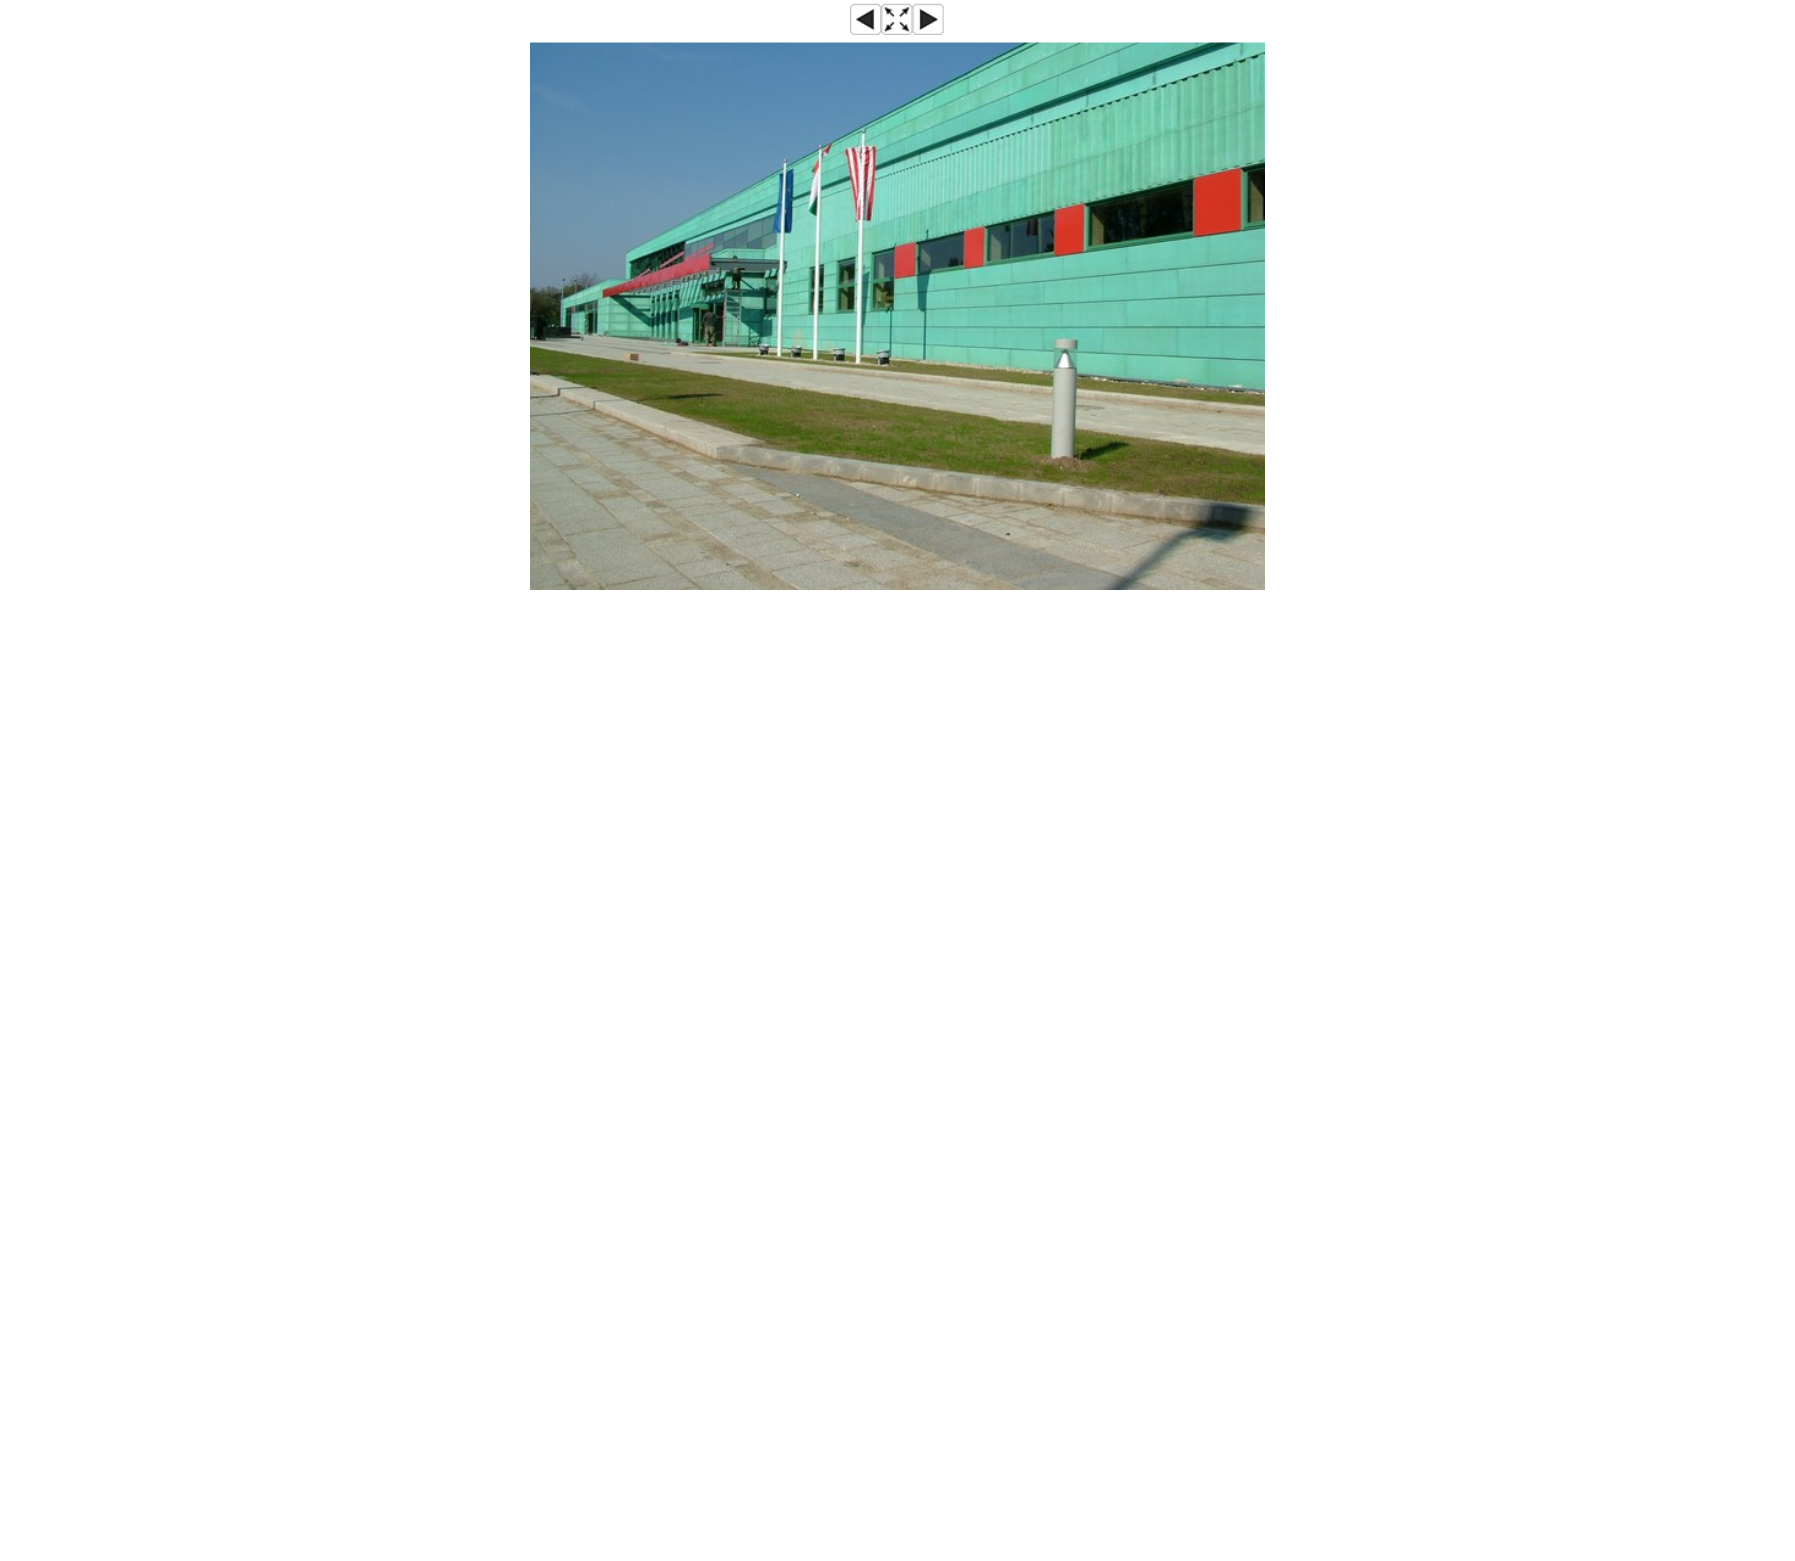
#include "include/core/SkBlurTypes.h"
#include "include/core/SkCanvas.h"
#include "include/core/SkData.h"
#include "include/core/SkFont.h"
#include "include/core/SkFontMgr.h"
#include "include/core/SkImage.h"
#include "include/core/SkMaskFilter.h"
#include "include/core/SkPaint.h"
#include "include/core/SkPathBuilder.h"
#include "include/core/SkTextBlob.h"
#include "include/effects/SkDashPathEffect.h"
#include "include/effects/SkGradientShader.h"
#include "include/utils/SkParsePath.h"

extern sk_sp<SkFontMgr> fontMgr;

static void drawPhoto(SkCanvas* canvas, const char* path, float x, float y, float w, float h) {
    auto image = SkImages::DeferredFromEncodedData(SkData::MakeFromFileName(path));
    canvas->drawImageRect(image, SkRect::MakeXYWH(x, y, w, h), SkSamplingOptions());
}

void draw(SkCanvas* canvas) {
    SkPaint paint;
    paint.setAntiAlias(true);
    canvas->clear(0xFFFFFFFF);
    drawPhoto(canvas, "assets/img1.png", 850, 3, 32, 32);
    drawPhoto(canvas, "assets/img2.png", 881, 3, 32, 32);
    drawPhoto(canvas, "assets/img3.png", 912, 3, 32, 32);
    drawPhoto(canvas, "assets/img4.png", 530, 42, 735, 548);
}
